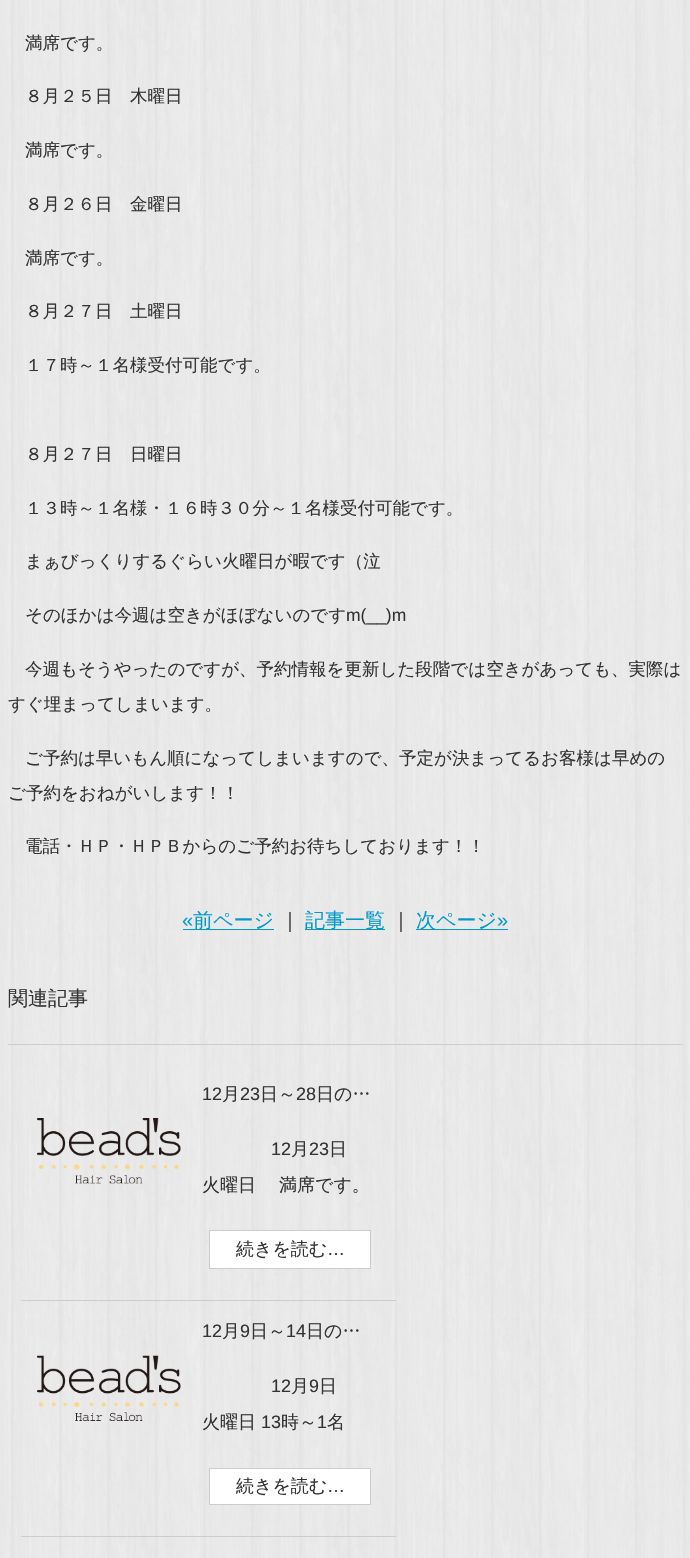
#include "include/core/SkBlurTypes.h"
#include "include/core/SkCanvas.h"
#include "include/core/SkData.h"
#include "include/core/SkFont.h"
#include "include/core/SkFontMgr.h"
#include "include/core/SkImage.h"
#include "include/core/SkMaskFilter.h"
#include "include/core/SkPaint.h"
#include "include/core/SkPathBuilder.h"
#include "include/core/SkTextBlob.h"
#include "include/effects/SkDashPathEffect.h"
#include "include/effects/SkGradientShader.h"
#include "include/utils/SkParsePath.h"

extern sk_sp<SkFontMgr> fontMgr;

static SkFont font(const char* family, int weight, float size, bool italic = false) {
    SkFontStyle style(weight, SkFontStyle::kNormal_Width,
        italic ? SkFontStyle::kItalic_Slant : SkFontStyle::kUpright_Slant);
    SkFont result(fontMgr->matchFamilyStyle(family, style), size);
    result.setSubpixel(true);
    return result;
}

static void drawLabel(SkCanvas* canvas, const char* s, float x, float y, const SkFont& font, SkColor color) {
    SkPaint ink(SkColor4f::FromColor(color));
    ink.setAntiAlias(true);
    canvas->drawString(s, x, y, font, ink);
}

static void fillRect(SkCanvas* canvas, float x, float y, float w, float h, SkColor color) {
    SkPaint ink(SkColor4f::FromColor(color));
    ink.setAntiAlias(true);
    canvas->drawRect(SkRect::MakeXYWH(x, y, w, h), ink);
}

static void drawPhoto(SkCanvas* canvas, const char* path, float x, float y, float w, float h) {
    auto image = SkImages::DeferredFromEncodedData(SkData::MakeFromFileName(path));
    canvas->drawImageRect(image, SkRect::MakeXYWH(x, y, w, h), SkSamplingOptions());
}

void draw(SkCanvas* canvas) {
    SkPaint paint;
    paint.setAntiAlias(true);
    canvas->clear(0xFFFFFFFF);
    drawPhoto(canvas, "assets/img1.png", 0, 0, 690, 1558);
    SkFont font1 = font("WenQuanYi Zen Hei", 500, 17.5f);
    drawLabel(canvas, "満席です。", 25, 49, font1, 0xFF333333);
    drawLabel(canvas, "８月２５日　木曜日", 25, 102, font1, 0xFF333333);
    drawLabel(canvas, "満席です。", 25, 156, font1, 0xFF333333);
    drawLabel(canvas, "８月２６日　金曜日", 25, 210, font1, 0xFF333333);
    drawLabel(canvas, "満席です。", 25, 264, font1, 0xFF333333);
    drawLabel(canvas, "８月２７日　土曜日", 25, 317, font1, 0xFF333333);
    drawLabel(canvas, "１７時～１名様受付可能です。", 25, 371, font1, 0xFF333333);
    drawLabel(canvas, "８月２７日　日曜日", 25, 460, font1, 0xFF333333);
    drawLabel(canvas, "１３時～１名様・１６時３０分～１名様受付可能です。", 25, 514, font1, 0xFF333333);
    drawLabel(canvas, "まぁびっくりするぐらい火曜日が暇です（泣", 25, 567, font1, 0xFF333333);
    drawLabel(canvas, "そのほかは今週は空きがほぼないのです", 25, 621, font1, 0xFF333333);
    SkFont font2 = font("Liberation Sans", 400, 17.5f);
    drawLabel(canvas, "m(__)m", 346, 621, font2, 0xFF333333);
    drawLabel(canvas, "今週もそうやったのですが、予約情報を更新した段階では空きがあっても、実際は", 25, 675, font1, 0xFF333333);
    drawLabel(canvas, "すぐ埋まってしまいます。", 8, 710, font1, 0xFF333333);
    drawLabel(canvas, "ご予約は早いもん順になってしまいますので、予定が決まってるお客様は早めの", 25, 764, font1, 0xFF333333);
    drawLabel(canvas, "ご予約をおねがいします！！", 8, 799, font1, 0xFF333333);
    drawLabel(canvas, "電話・ＨＰ・ＨＰＢからのご予約お待ちしております！！", 25, 852, font1, 0xFF333333);
    SkFont font3 = font("Liberation Sans", 400, 20);
    drawLabel(canvas, "«", 182, 927, font3, 0xFF0099CC);
    fillRect(canvas, 183, 929, 91, 1, 0xFF0099CC);
    SkFont font4 = font("WenQuanYi Zen Hei", 500, 20);
    drawLabel(canvas, "前ページ", 193, 927, font4, 0xFF0099CC);
    drawLabel(canvas, "｜", 280, 927, font4, 0xFF333333);
    fillRect(canvas, 305, 929, 80, 1, 0xFF0099CC);
    drawLabel(canvas, "記事一覧", 305, 927, font4, 0xFF0099CC);
    drawLabel(canvas, "｜", 391, 927, font4, 0xFF333333);
    fillRect(canvas, 416, 929, 92, 1, 0xFF0099CC);
    drawLabel(canvas, "次ページ", 416, 927, font4, 0xFF0099CC);
    drawLabel(canvas, "»", 497, 927, font3, 0xFF0099CC);
    drawLabel(canvas, "関連記事", 8, 1005, font4, 0xFF333333);
    fillRect(canvas, 8, 1044, 675, 1, 0xFFCCCCCC);
    fillRect(canvas, 21, 1300, 375, 1, 0xFFCCCCCC);
    drawPhoto(canvas, "assets/img2.png", 37, 1118, 144, 66);
    SkFont font5 = font("Liberation Sans", 400, 18);
    drawLabel(canvas, "12", 202, 1100, font5, 0xFF333333);
    SkFont font6 = font("WenQuanYi Zen Hei", 500, 18);
    drawLabel(canvas, "月", 222, 1100, font6, 0xFF333333);
    drawLabel(canvas, "23", 240, 1100, font5, 0xFF333333);
    drawLabel(canvas, "日～", 260, 1100, font6, 0xFF333333);
    drawLabel(canvas, "28", 296, 1100, font5, 0xFF333333);
    drawLabel(canvas, "日の…", 316, 1100, font6, 0xFF333333);
    drawLabel(canvas, "12", 271, 1155, font5, 0xFF333333);
    drawLabel(canvas, "月", 291, 1155, font6, 0xFF333333);
    drawLabel(canvas, "23", 309, 1155, font5, 0xFF333333);
    drawLabel(canvas, "日", 329, 1155, font6, 0xFF333333);
    drawLabel(canvas, "火曜日", 202, 1191, font6, 0xFF333333);
    drawLabel(canvas, "満席です。", 279, 1191, font6, 0xFF333333);
    paint.setColor(0xFFFFFFFF);
    canvas->drawRect(SkRect::MakeXYWH(209.5f, 1230.5f, 161, 38), paint);
    paint.setStroke(true);
    paint.setStrokeWidth(1);
    paint.setColor(0xFFCCCCCC);
    canvas->drawRect(SkRect::MakeXYWH(209.5f, 1230.5f, 161, 38), paint);
    drawLabel(canvas, "続きを読む", 236, 1255, font6, 0xFF333333);
    drawLabel(canvas, "…", 327, 1255, font5, 0xFF333333);
    fillRect(canvas, 21, 1536, 375, 1, 0xFFCCCCCC);
    drawPhoto(canvas, "assets/img3.png", 37, 1355, 144, 66);
    drawLabel(canvas, "12", 202, 1337, font5, 0xFF333333);
    drawLabel(canvas, "月", 222, 1337, font6, 0xFF333333);
    drawLabel(canvas, "9", 240, 1337, font5, 0xFF333333);
    drawLabel(canvas, "日～", 250, 1337, font6, 0xFF333333);
    drawLabel(canvas, "14", 286, 1337, font5, 0xFF333333);
    drawLabel(canvas, "日の…", 306, 1337, font6, 0xFF333333);
    drawLabel(canvas, "12", 271, 1392, font5, 0xFF333333);
    drawLabel(canvas, "月", 291, 1392, font6, 0xFF333333);
    drawLabel(canvas, "9", 309, 1392, font5, 0xFF333333);
    drawLabel(canvas, "日", 319, 1392, font6, 0xFF333333);
    drawLabel(canvas, "火曜日", 202, 1428, font6, 0xFF333333);
    drawLabel(canvas, "13", 261, 1428, font5, 0xFF333333);
    drawLabel(canvas, "時～", 281, 1428, font6, 0xFF333333);
    drawLabel(canvas, "1", 317, 1428, font5, 0xFF333333);
    drawLabel(canvas, "名", 327, 1428, font6, 0xFF333333);
    paint.setStroke(false);
    paint.setColor(0xFFFFFFFF);
    canvas->drawRect(SkRect::MakeXYWH(209.5f, 1468.5f, 161, 36), paint);
    paint.setStroke(true);
    paint.setColor(0xFFCCCCCC);
    canvas->drawRect(SkRect::MakeXYWH(209.5f, 1468.5f, 161, 36), paint);
    drawLabel(canvas, "続きを読む", 236, 1492, font6, 0xFF333333);
    drawLabel(canvas, "…", 327, 1492, font5, 0xFF333333);
}
